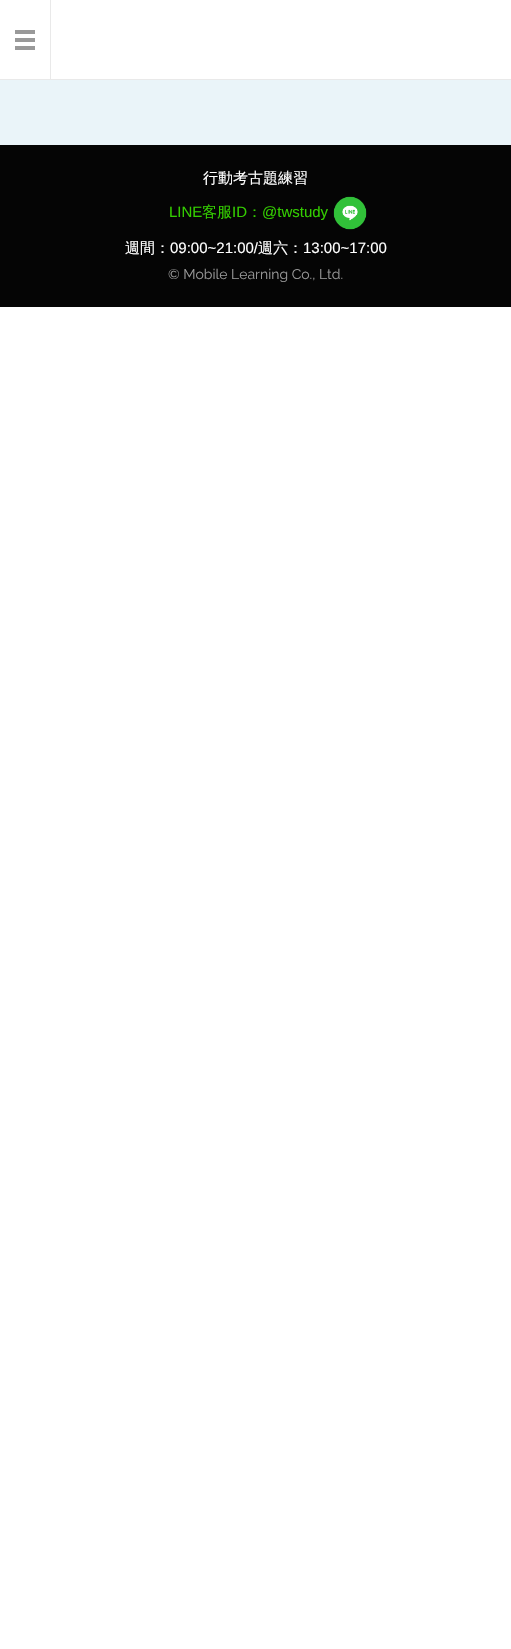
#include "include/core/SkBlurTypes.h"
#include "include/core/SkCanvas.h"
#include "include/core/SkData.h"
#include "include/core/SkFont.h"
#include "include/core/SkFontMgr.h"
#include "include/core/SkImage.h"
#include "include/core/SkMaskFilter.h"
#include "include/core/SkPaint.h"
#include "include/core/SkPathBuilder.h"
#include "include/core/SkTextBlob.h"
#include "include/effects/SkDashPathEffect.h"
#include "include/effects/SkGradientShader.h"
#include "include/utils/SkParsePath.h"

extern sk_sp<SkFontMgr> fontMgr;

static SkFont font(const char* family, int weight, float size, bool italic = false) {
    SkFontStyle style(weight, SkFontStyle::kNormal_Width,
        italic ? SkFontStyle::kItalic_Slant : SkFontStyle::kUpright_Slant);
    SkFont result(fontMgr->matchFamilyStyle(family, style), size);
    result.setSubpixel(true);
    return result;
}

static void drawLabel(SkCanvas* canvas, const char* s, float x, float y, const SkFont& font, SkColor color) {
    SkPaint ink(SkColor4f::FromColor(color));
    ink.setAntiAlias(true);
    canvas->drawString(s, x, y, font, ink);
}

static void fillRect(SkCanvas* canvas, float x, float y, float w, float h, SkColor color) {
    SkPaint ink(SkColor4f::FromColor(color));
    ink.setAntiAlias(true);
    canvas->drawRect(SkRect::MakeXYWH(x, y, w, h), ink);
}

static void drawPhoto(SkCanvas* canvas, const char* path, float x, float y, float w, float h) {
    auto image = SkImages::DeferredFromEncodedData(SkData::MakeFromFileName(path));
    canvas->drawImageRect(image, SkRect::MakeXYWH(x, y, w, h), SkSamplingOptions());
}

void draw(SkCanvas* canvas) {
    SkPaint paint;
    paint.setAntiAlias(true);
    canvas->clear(0xFFFFFFFF);
    fillRect(canvas, 0, 79, 511, 1, 0xFFE9E9E9);
    fillRect(canvas, 50, 0, 1, 80, 0xFFE9E9E9);
    fillRect(canvas, 15, 30, 20, 4, 0xFF999999);
    fillRect(canvas, 15, 38, 20, 4, 0xFF999999);
    fillRect(canvas, 15, 46, 20, 4, 0xFF999999);
    fillRect(canvas, 0, 80, 511, 65, 0xFFEAF4F9);
    fillRect(canvas, 0, 145, 511, 162, 0xFF050505);
    SkFont font1 = font("WenQuanYi Zen Hei", 500, 15);
    drawLabel(canvas, "行動考古題練習", 203, 183, font1, 0xFFFFFFFF);
    SkFont font2 = font("Liberation Sans", 400, 15);
    drawLabel(canvas, "LINE", 169, 217, font2, 0xFF33CC00);
    drawLabel(canvas, "客服", 202, 217, font1, 0xFF33CC00);
    drawLabel(canvas, "ID", 232, 217, font2, 0xFF33CC00);
    drawLabel(canvas, "：", 247, 217, font1, 0xFF33CC00);
    drawLabel(canvas, "@twstudy", 262, 217, font2, 0xFF33CC00);
    drawPhoto(canvas, "assets/img1.png", 333, 196, 34, 34);
    drawLabel(canvas, "週間：", 125, 253, font1, 0xFFFFFFFF);
    drawLabel(canvas, "09:00~21:00/", 170, 253, font2, 0xFFFFFFFF);
    drawLabel(canvas, "週六：", 258, 253, font1, 0xFFFFFFFF);
    drawLabel(canvas, "13:00~17:00", 303, 253, font2, 0xFFFFFFFF);
    SkFont font3 = font("Raleway", 400, 14);
    drawLabel(canvas, "© Mobile Learning Co., Ltd.", 168, 279, font3, 0xFF999999);
}
